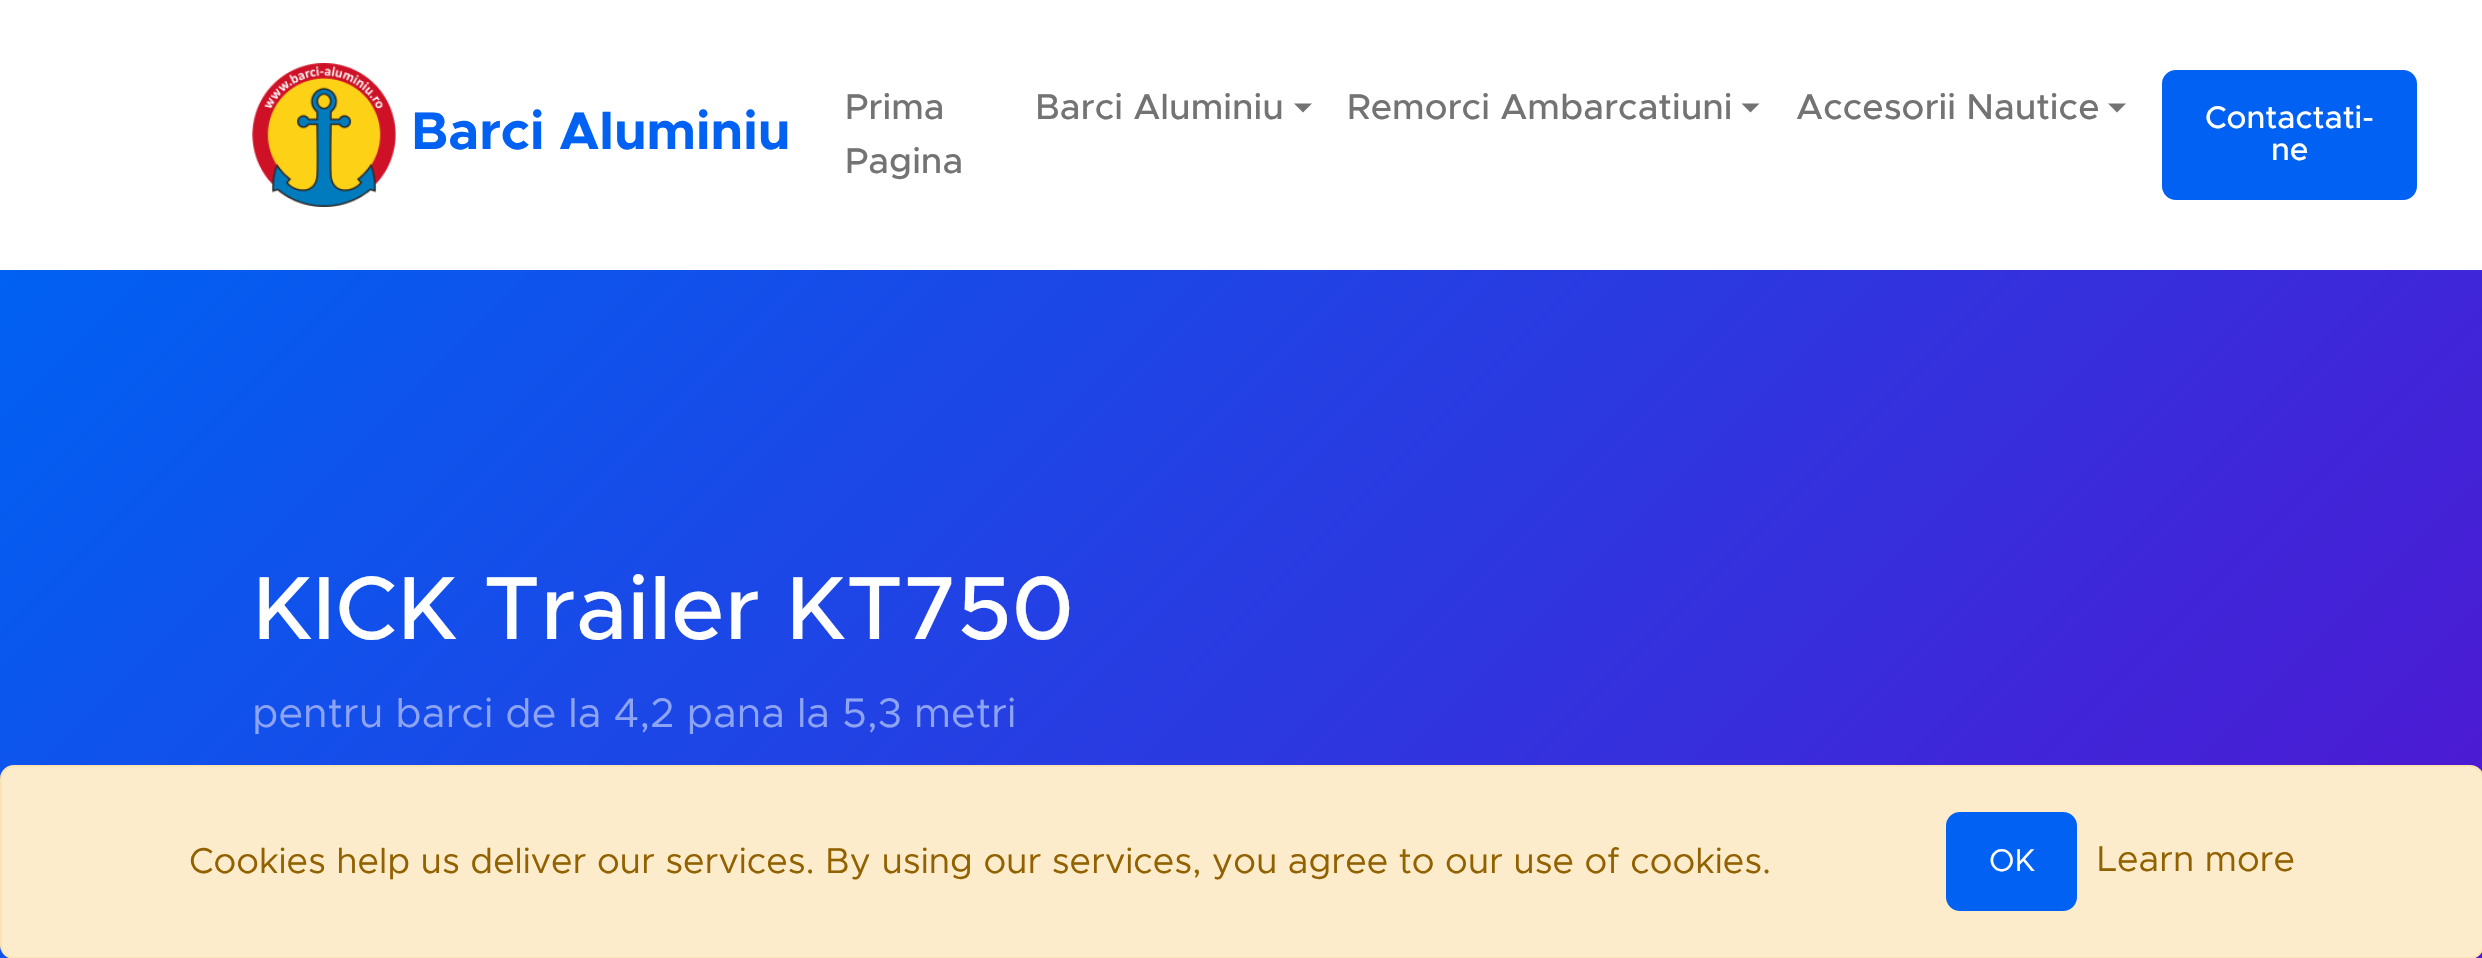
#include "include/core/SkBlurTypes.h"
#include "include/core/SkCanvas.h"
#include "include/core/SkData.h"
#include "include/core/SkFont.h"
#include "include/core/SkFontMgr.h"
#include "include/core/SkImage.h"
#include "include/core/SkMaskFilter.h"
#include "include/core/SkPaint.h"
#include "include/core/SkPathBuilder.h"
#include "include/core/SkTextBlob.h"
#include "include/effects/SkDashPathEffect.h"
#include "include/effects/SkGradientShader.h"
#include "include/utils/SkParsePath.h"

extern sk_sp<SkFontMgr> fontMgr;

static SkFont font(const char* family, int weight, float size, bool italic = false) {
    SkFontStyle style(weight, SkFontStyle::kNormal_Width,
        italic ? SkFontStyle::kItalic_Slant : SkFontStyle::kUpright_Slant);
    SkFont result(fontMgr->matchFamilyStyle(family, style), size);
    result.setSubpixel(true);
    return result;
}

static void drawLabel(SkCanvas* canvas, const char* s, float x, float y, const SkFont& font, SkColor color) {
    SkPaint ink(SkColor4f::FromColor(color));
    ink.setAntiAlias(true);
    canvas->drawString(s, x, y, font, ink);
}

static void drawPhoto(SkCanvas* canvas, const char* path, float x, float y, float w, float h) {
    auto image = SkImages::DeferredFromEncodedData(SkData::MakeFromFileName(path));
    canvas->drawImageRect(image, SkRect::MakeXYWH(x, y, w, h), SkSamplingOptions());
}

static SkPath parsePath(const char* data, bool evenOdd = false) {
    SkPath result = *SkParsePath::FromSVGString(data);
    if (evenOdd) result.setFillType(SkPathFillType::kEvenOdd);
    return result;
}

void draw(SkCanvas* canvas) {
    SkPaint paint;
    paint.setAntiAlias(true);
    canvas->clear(0xFFFFFFFF);
    drawPhoto(canvas, "assets/img1.png", 252, 63, 144, 144);
    SkFont font1 = font("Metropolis", 700, 53.25f);
    drawLabel(canvas, "Barci Aluminiu", 411, 149, font1, 0xFF0061F2);
    SkFont font2 = font("Metropolis", 500, 36);
    drawLabel(canvas, "Prima", 845, 119, font2, 0xFF737373);
    drawLabel(canvas, "Pagina", 845, 173, font2, 0xFF737373);
    drawLabel(canvas, "Barci Aluminiu", 1035, 119, font2, 0xFF737373);
    paint.setColor(0xFF737373);
    canvas->drawPath(parsePath("M1294 103.5H1312L1303 112.5Z"), paint);
    drawLabel(canvas, "Remorci Ambarcatiuni", 1347, 119, font2, 0xFF737373);
    canvas->drawPath(parsePath("M1741.5 103.5H1759.5L1750.5 112.5Z"), paint);
    drawLabel(canvas, "Accesorii Nautice", 1796, 119, font2, 0xFF737373);
    canvas->drawPath(parsePath("M2108 103.5H2126L2117 112.5Z"), paint);
    paint.setColor(0xFF0061F2);
    canvas->drawRoundRect(SkRect::MakeXYWH(2163, 71, 253, 128), 13, 13, paint);
    paint.setStroke(true);
    paint.setStrokeWidth(2);
    canvas->drawRoundRect(SkRect::MakeXYWH(2163, 71, 253, 128), 13, 13, paint);
    SkFont font3 = font("Metropolis", 500, 31.5f);
    drawLabel(canvas, "Contactati-", 2205, 128, font3, 0xFFFFFFFF);
    drawLabel(canvas, "ne", 2271, 160, font3, 0xFFFFFFFF);
    paint.setStroke(false);
    {
        const SkColor colors[] = {0xFF0061F2, 0xFF5413D0};
        const float stops[] = {0, 1};
        const SkPoint ends[] = {{416, -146}, {2068, 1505}};
        paint.setShader(SkGradientShader::MakeLinear(ends, colors, stops, 2, SkTileMode::kClamp));
        paint.setAlpha(255);
    }
    canvas->drawRect(SkRect::MakeXYWH(0, 270, 2482, 688), paint);
    SkFont font4 = font("Metropolis", 500, 90);
    drawLabel(canvas, "KICK Trailer KT750", 252, 639, font4, 0xFFFFFFFF);
    SkFont font5 = font("Metropolis", 400, 41.4f);
    drawLabel(canvas, "pentru barci de la 4,2 pana la 5,3 metri", 252, 727, font5, 0xFF8DA3F3);
    paint.setShader(nullptr);
    paint.setColor(0xFFFDECCC);
    canvas->drawRoundRect(SkRect::MakeXYWH(1, 766, 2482, 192), 13, 13, paint);
    paint.setStroke(true);
    paint.setColor(0xFFFCE3B3);
    canvas->drawRoundRect(SkRect::MakeXYWH(1, 766, 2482, 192), 13, 13, paint);
    SkFont font6 = font("Metropolis", 400, 36);
    drawLabel(canvas, "Cookies help us deliver our services. By using our services, you agree to our use of cookies.", 189, 873, font6, 0xFF926100);
    paint.setStroke(false);
    paint.setColor(0xFF0061F2);
    canvas->drawRoundRect(SkRect::MakeXYWH(1947, 813, 129, 97), 13, 13, paint);
    paint.setStroke(true);
    canvas->drawRoundRect(SkRect::MakeXYWH(1947, 813, 129, 97), 13, 13, paint);
    SkFont font7 = font("Metropolis", 400, 31.5f);
    drawLabel(canvas, "OK", 1989, 871, font7, 0xFFFFFFFF);
    drawLabel(canvas, "Learn more", 2097, 871, font6, 0xFF926100);
}
